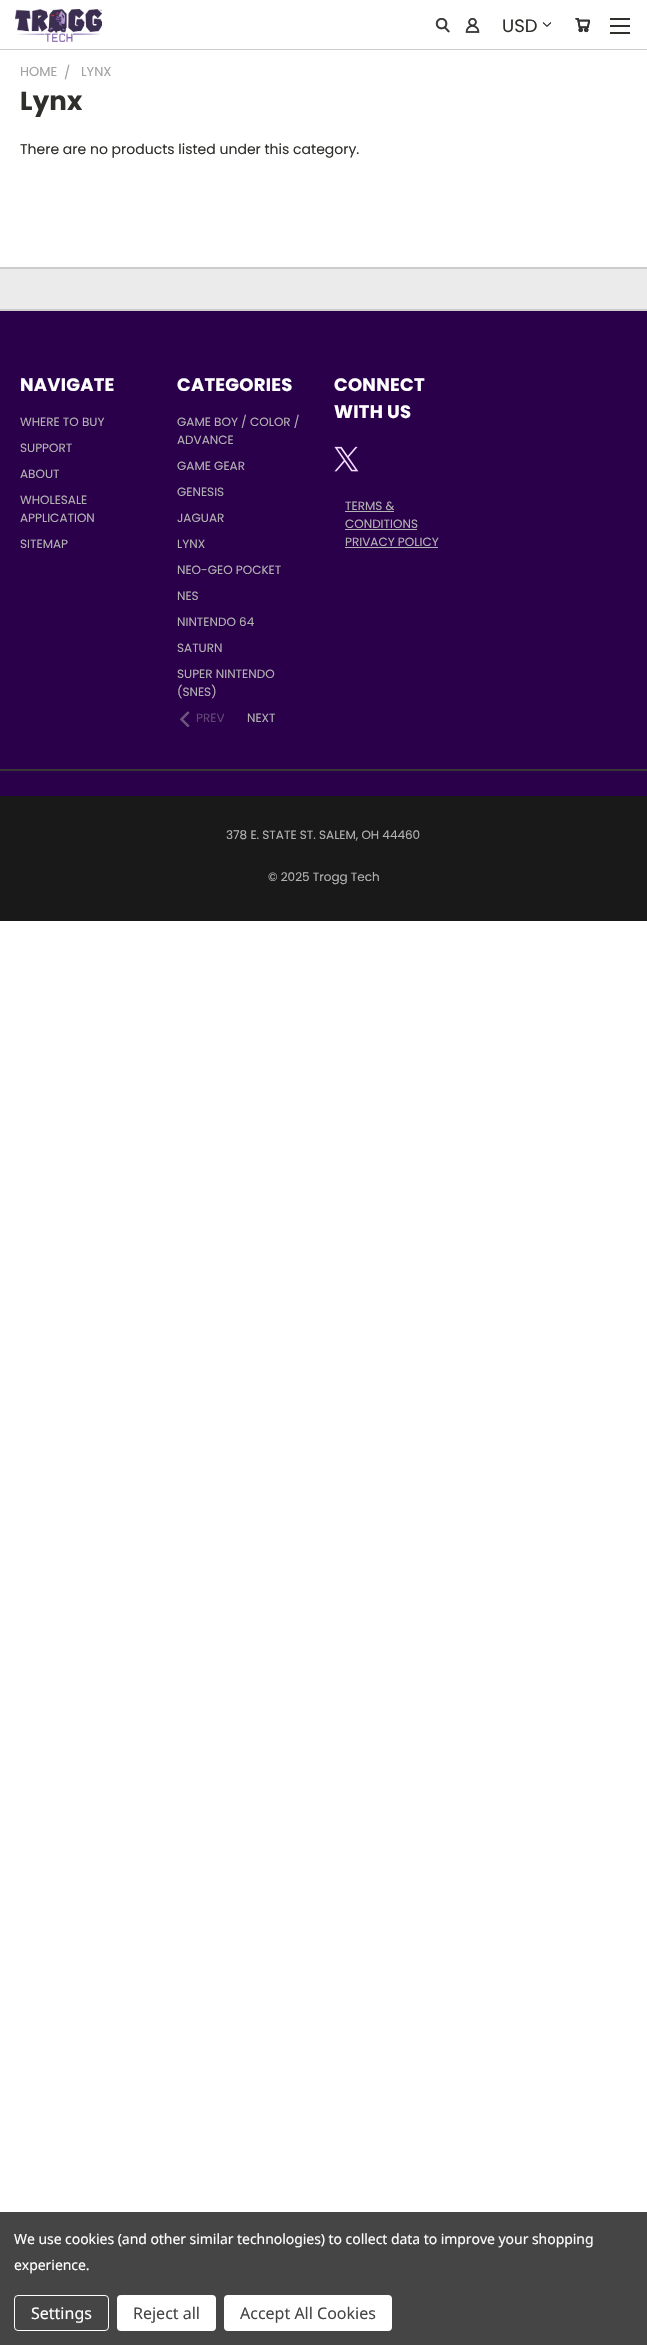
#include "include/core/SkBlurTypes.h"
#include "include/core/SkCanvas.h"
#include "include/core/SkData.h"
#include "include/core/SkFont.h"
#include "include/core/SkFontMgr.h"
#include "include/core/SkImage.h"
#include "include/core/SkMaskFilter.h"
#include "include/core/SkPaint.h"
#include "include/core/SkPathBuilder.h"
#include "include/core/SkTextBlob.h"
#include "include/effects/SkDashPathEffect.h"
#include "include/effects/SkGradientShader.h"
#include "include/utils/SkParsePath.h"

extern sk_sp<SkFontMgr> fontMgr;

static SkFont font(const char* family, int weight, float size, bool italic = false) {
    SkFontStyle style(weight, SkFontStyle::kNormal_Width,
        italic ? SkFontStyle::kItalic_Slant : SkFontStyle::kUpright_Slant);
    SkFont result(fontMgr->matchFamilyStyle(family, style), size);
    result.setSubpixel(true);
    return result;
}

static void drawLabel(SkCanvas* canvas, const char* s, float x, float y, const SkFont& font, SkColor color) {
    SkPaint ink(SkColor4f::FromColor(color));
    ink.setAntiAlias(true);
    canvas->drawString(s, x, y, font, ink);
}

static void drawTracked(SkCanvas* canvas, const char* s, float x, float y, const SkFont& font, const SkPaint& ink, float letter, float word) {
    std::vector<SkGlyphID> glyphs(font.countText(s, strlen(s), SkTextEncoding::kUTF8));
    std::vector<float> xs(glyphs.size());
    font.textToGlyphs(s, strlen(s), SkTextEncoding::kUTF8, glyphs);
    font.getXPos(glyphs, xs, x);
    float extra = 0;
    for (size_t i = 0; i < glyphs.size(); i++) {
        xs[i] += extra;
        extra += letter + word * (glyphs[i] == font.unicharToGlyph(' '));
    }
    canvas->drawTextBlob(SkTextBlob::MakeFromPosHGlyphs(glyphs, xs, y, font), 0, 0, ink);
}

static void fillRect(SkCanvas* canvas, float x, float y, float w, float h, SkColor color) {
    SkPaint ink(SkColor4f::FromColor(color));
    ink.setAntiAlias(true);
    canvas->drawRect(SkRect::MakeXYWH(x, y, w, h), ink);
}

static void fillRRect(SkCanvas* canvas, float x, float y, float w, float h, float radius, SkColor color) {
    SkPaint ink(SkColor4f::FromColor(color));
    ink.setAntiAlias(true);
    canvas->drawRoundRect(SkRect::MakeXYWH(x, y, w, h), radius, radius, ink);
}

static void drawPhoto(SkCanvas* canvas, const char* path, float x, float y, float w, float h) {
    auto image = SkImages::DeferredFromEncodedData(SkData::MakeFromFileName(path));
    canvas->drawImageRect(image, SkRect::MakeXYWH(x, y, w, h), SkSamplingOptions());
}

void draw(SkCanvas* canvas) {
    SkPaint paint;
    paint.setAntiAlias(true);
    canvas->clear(0xFFFFFFFF);
    fillRect(canvas, 0, 49, 647, 1, 0xFFCDCCCC);
    drawPhoto(canvas, "assets/img1.png", 15, 9, 87, 33);
    drawPhoto(canvas, "assets/img2.png", 435, 18, 15, 15);
    drawPhoto(canvas, "assets/img3.png", 465, 18, 15, 15);
    SkFont font1 = font("Poppins", 400, 18);
    drawLabel(canvas, "USD", 502, 32, font1, 0xFF2F2F2B);
    drawPhoto(canvas, "assets/img4.png", 543, 22, 8, 5);
    drawPhoto(canvas, "assets/img5.png", 575, 18, 15, 15);
    fillRect(canvas, 610, 25, 20, 2, 0xFF2F2F2B);
    fillRect(canvas, 610, 18, 20, 2, 0xFF2F2F2B);
    fillRect(canvas, 610, 32, 20, 2, 0xFF2F2F2B);
    SkFont font2 = font("Poppins", 400, 13);
    drawLabel(canvas, "HOME", 20, 76, font2, 0xFFA2A2A2);
    drawLabel(canvas, "/", 64, 77, font2, 0xFFA2A2A2);
    drawLabel(canvas, "LYNX", 81, 76, font2, 0xFFA2A2A2);
    SkFont font3 = font("Poppins", 700, 26);
    paint.setColor(0xFF2F2F2B);
    drawTracked(canvas, "Lynx", 20, 110, font3, paint, 0.25f, 0);
    SkFont font4 = font("Poppins", 400, 14);
    drawLabel(canvas, "There are no products listed under this category.", 20, 154, font4, 0xFF2F2F2B);
    fillRect(canvas, 0, 269, 647, 40, 0xFFEBEBEB);
    fillRect(canvas, 0, 267, 647, 2, 0xFFCDCCCC);
    fillRect(canvas, 0, 311, 647, 485, 0xFF2B004B);
    fillRect(canvas, 0, 309, 647, 2, 0xFFCDCCCC);
    SkFont font5 = font("Poppins", 700, 18);
    paint.setColor(0xFFFFFFFF);
    drawTracked(canvas, "NAVIGATE", 20, 391, font5, paint, 0.25f, 0);
    SkFont font6 = font("Poppins", 400, 12);
    drawLabel(canvas, "WHERE TO BUY", 20, 426, font6, 0xFFB2B2B2);
    drawLabel(canvas, "SUPPORT", 20, 452, font6, 0xFFB2B2B2);
    drawLabel(canvas, "ABOUT", 20, 478, font6, 0xFFB2B2B2);
    drawLabel(canvas, "WHOLESALE", 20, 504, font6, 0xFFB2B2B2);
    drawLabel(canvas, "APPLICATION", 20, 522, font6, 0xFFB2B2B2);
    drawLabel(canvas, "SITEMAP", 20, 548, font6, 0xFFB2B2B2);
    drawTracked(canvas, "CATEGORIES", 177, 391, font5, paint, 0.25f, 0);
    drawLabel(canvas, "GAME BOY / COLOR /", 177, 426, font6, 0xFFB2B2B2);
    drawLabel(canvas, "ADVANCE", 177, 444, font6, 0xFFB2B2B2);
    drawLabel(canvas, "GAME GEAR", 177, 470, font6, 0xFFB2B2B2);
    drawLabel(canvas, "GENESIS", 177, 496, font6, 0xFFB2B2B2);
    drawLabel(canvas, "JAGUAR", 177, 522, font6, 0xFFB2B2B2);
    drawLabel(canvas, "LYNX", 177, 548, font6, 0xFFB2B2B2);
    drawLabel(canvas, "NEO-GEO POCKET", 177, 574, font6, 0xFFB2B2B2);
    drawLabel(canvas, "NES", 177, 600, font6, 0xFFB2B2B2);
    drawLabel(canvas, "NINTENDO 64", 177, 626, font6, 0xFFB2B2B2);
    drawLabel(canvas, "SATURN", 177, 652, font6, 0xFFB2B2B2);
    drawLabel(canvas, "SUPER NINTENDO", 177, 678, font6, 0xFFB2B2B2);
    drawLabel(canvas, "(SNES)", 177, 696, font6, 0xFFB2B2B2);
    drawPhoto(canvas, "assets/img6.png", 180, 711, 10, 16);
    drawLabel(canvas, "PREV", 196, 722, font6, 0xFF614774);
    drawLabel(canvas, "NEXT", 247, 722, font6, 0xFFB2B2B2);
    drawTracked(canvas, "CONNECT", 334, 391, font5, paint, 0.25f, 0);
    drawTracked(canvas, "WITH US", 334, 418, font5, paint, 0.25f, 0);
    drawPhoto(canvas, "assets/img7.png", 334, 446, 25, 26);
    drawLabel(canvas, "TERMS &", 345, 510, font6, 0xFFB2B2B2);
    fillRect(canvas, 345, 511, 49, 1, 0xFFB2B2B2);
    drawLabel(canvas, "CONDITIONS", 345, 528, font6, 0xFFB2B2B2);
    fillRect(canvas, 345, 529, 72, 1, 0xFFB2B2B2);
    drawLabel(canvas, "PRIVACY POLICY", 345, 546, font6, 0xFFB2B2B2);
    fillRect(canvas, 345, 547, 93, 1, 0xFFB2B2B2);
    fillRect(canvas, 0, 769, 647, 2, 0xFF363636);
    fillRect(canvas, 0, 796, 647, 125, 0xFF191919);
    drawLabel(canvas, "378 E. STATE ST. SALEM, OH 44460", 226, 839, font6, 0xFFB2B2B2);
    drawLabel(canvas, "© 2025 Trogg Tech", 268, 881, font6, 0xFFB2B2B2);
    fillRect(canvas, 0, 2212, 647, 133, 0xFF454545);
    SkFont font7 = font("Noto Sans", 400, 14);
    drawTracked(canvas, "We use cookies (and other similar technologies) to collect data to improve your shopping", 14, 2244, font7, paint, -0.05f, 0);
    drawTracked(canvas, "experience.", 14, 2270, font7, paint, -0.05f, 0);
    paint.setStroke(true);
    paint.setStrokeWidth(1);
    canvas->drawRoundRect(SkRect::MakeXYWH(14.5f, 2295.5f, 94, 35), 3.5f, 3.5f, paint);
    SkFont font8 = font("Noto Sans", 400, 16);
    drawLabel(canvas, "Settings", 31, 2319, font8, 0xFFFFFFFF);
    fillRRect(canvas, 117, 2295, 99, 36, 4, 0xFFFFFFFF);
    drawLabel(canvas, "Reject all", 133, 2319, font8, 0xFF454545);
    fillRRect(canvas, 224, 2295, 168, 36, 4, 0xFFFFFFFF);
    drawLabel(canvas, "Accept All Cookies", 240, 2319, font8, 0xFF454545);
}
